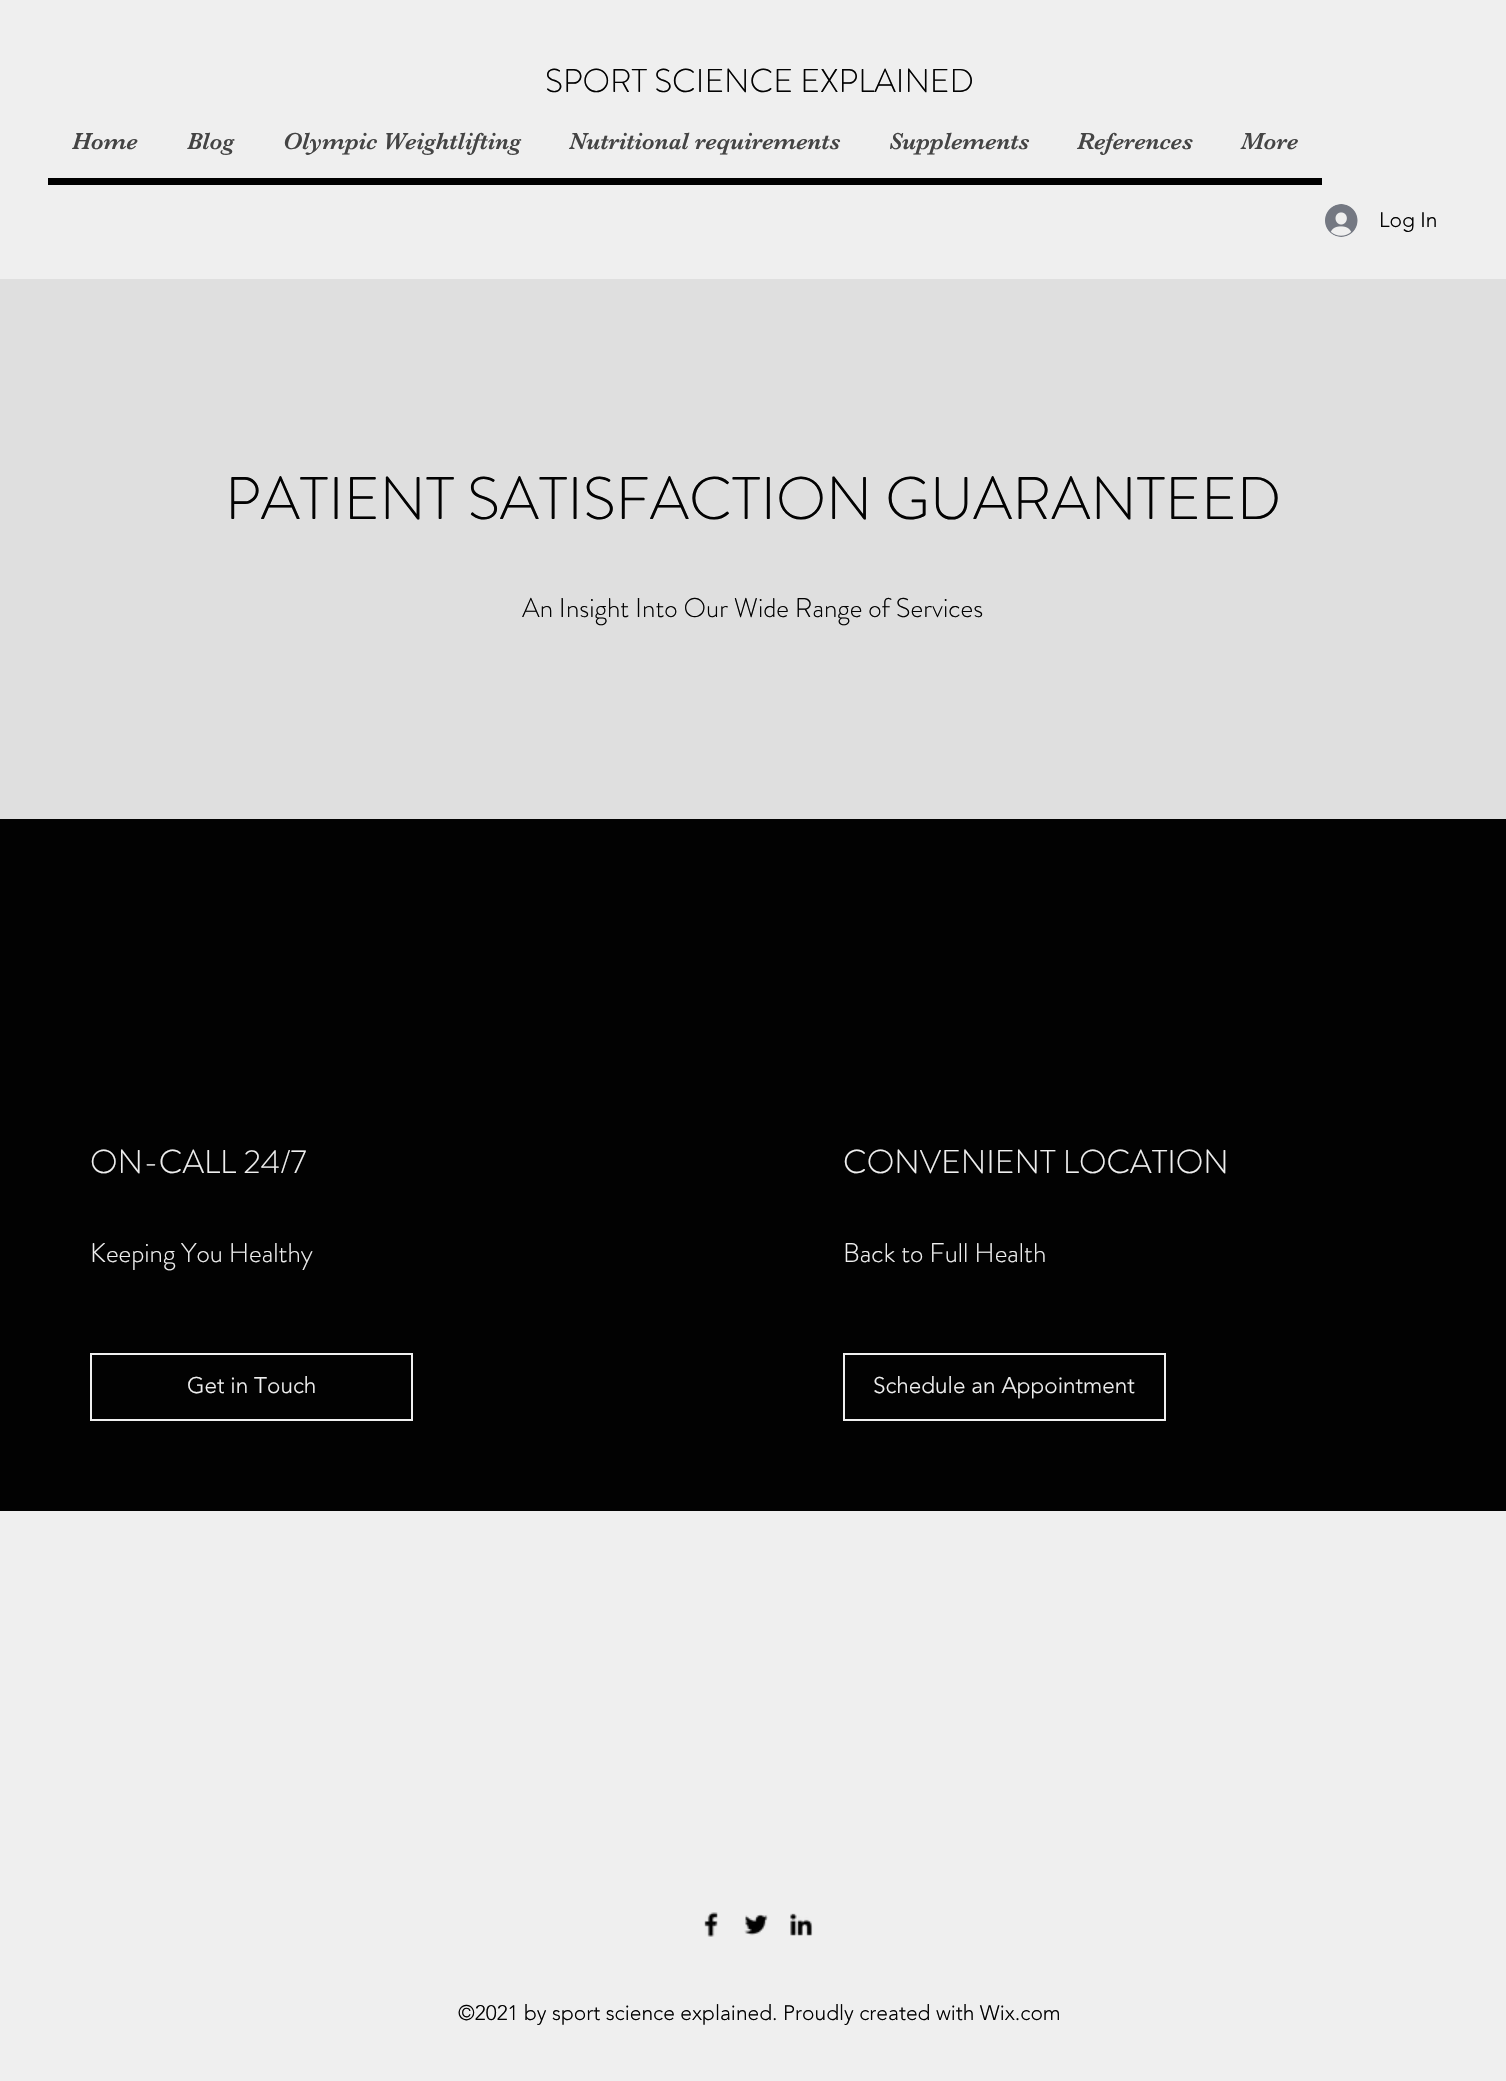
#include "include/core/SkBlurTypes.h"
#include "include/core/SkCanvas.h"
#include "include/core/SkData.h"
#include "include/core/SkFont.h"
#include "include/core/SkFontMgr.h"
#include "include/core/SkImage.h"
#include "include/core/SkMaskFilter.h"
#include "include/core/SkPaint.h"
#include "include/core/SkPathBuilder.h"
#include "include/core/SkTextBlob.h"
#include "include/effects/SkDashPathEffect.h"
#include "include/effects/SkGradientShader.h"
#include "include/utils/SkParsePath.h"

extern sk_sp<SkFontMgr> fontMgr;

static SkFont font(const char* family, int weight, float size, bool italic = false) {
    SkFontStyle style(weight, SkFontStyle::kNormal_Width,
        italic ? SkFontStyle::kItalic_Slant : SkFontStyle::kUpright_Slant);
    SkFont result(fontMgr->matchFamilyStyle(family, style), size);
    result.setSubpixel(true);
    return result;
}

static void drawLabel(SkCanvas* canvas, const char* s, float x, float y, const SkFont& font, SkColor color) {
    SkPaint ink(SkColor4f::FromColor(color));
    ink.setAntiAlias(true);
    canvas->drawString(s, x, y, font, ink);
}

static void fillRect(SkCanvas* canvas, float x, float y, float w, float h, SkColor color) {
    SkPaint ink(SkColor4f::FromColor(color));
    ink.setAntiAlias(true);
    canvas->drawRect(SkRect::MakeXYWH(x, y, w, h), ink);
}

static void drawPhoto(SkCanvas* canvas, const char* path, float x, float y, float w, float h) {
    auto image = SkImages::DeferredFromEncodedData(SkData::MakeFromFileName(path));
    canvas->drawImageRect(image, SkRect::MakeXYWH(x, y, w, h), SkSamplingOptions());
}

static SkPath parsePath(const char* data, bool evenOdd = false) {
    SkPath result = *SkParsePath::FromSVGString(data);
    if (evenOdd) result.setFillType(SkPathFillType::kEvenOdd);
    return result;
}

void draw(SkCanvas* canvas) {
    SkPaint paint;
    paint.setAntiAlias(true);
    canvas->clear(0xFFEFEFEF);
    SkFont font1 = font("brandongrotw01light", 300, 33);
    drawLabel(canvas, "SPORT SCIENCE EXPLAINED", 545, 92, font1, 0xFF020202);
    paint.setColor(0xFF000000);
    canvas->drawPath(parsePath("M48 178V185H1322V110V178Z"), paint);
    SkFont font2 = font("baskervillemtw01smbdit", 400, 24);
    drawLabel(canvas, "Home", 72, 149, font2, 0xFF444444);
    drawLabel(canvas, "Blog", 187, 149, font2, 0xFF444444);
    drawLabel(canvas, "Olympic Weightlifting", 283, 149, font2, 0xFF444444);
    drawLabel(canvas, "Nutritional requirements", 569, 149, font2, 0xFF444444);
    drawLabel(canvas, "Supplements", 889, 149, font2, 0xFF444444);
    drawLabel(canvas, "References", 1077, 149, font2, 0xFF444444);
    drawLabel(canvas, "More", 1241, 149, font2, 0xFF444444);
    drawPhoto(canvas, "assets/img1.png", 1325, 204, 33, 33);
    SkFont font3 = font("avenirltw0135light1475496", 300, 21);
    drawLabel(canvas, "Log In", 1379, 227, font3, 0xFF020202);
    fillRect(canvas, 0, 279, 1506, 540, 0xFFDFDFDF);
    SkFont font4 = font("brandongrotw01light", 300, 60);
    drawLabel(canvas, "PATIENT SATISFACTION GUARANTEED", 225, 519, font4, 0xFF020202);
    SkFont font5 = font("brandongrotw01light", 300, 27);
    drawLabel(canvas, "An Insight Into Our Wide Range of Services", 522, 617, font5, 0xFF020202);
    fillRect(canvas, 0, 819, 1506, 692, 0xFF020202);
    drawLabel(canvas, "ON-CALL 24/7", 90, 1173, font1, 0xFFEFEFEF);
    drawLabel(canvas, "Keeping You Healthy", 90, 1262, font5, 0xFFEFEFEF);
    paint.setStroke(true);
    paint.setStrokeWidth(2);
    paint.setColor(0xFFEFEFEF);
    canvas->drawRect(SkRect::MakeXYWH(91, 1354, 321, 66), paint);
    SkFont font6 = font("avenirltw0135light1475496", 300, 22.5f);
    drawLabel(canvas, "Get in Touch", 187, 1393, font6, 0xFFEFEFEF);
    drawLabel(canvas, "CONVENIENT LOCATION", 843, 1173, font1, 0xFFEFEFEF);
    drawLabel(canvas, "Back to Full Health", 843, 1262, font5, 0xFFEFEFEF);
    canvas->drawRect(SkRect::MakeXYWH(844, 1354, 321, 66), paint);
    drawLabel(canvas, "Schedule an Appointment", 873, 1393, font6, 0xFFEFEFEF);
    drawPhoto(canvas, "assets/img2.png", 704, 1912, 14, 25);
    drawPhoto(canvas, "assets/img3.png", 744, 1914, 24, 22);
    drawPhoto(canvas, "assets/img4.png", 790, 1913, 23, 23);
    drawLabel(canvas, "©2021 by sport science explained. Proudly created with Wix.com", 458, 2020, font3, 0xFF020202);
}
